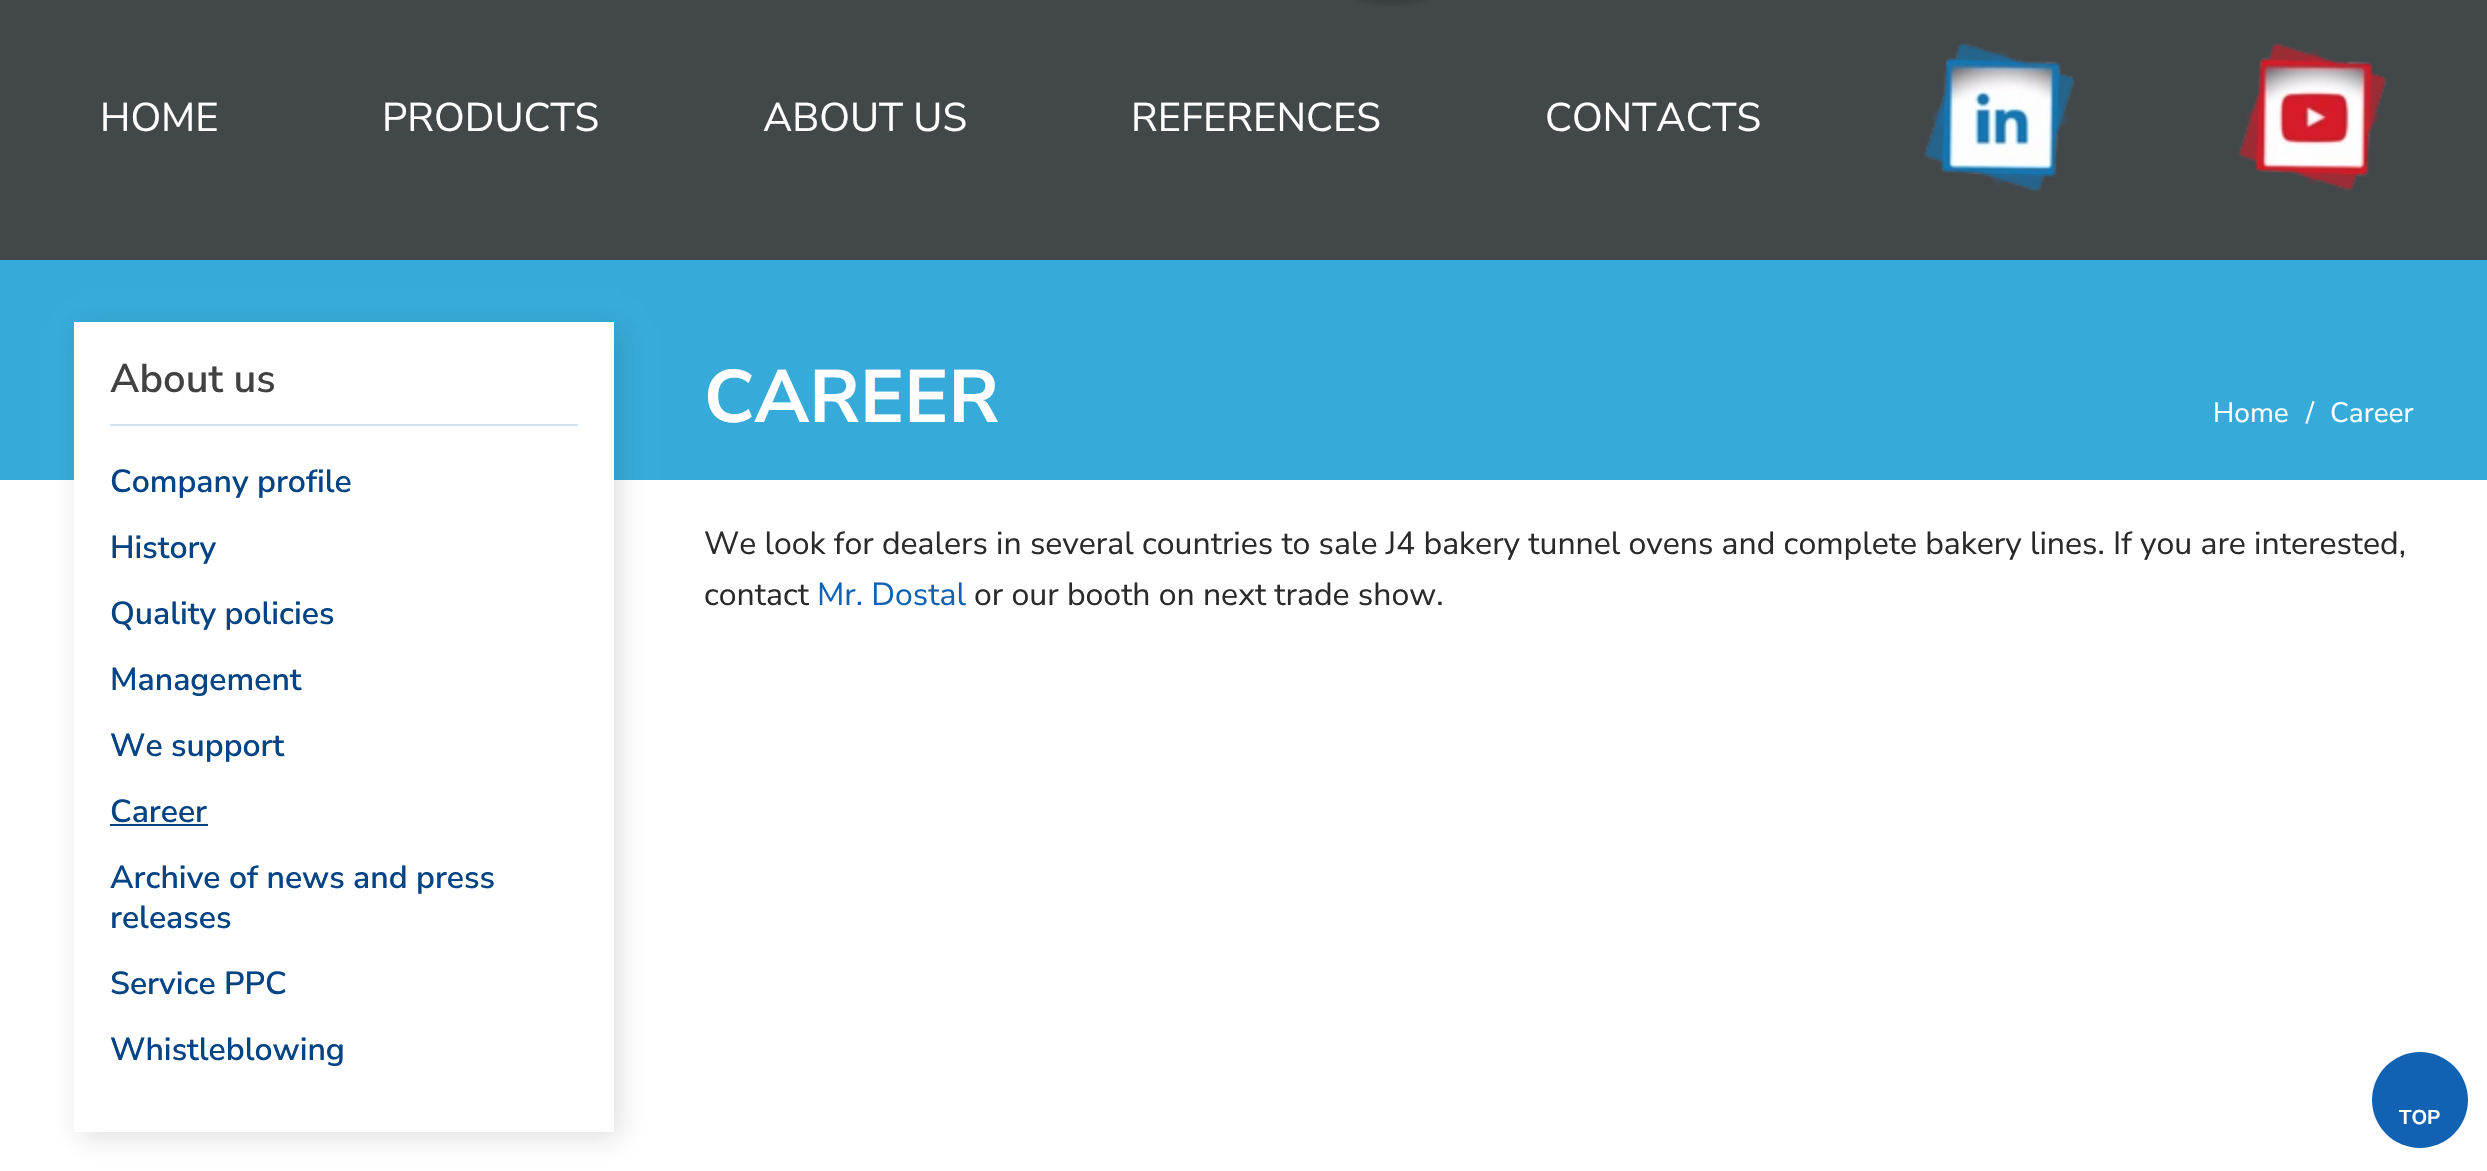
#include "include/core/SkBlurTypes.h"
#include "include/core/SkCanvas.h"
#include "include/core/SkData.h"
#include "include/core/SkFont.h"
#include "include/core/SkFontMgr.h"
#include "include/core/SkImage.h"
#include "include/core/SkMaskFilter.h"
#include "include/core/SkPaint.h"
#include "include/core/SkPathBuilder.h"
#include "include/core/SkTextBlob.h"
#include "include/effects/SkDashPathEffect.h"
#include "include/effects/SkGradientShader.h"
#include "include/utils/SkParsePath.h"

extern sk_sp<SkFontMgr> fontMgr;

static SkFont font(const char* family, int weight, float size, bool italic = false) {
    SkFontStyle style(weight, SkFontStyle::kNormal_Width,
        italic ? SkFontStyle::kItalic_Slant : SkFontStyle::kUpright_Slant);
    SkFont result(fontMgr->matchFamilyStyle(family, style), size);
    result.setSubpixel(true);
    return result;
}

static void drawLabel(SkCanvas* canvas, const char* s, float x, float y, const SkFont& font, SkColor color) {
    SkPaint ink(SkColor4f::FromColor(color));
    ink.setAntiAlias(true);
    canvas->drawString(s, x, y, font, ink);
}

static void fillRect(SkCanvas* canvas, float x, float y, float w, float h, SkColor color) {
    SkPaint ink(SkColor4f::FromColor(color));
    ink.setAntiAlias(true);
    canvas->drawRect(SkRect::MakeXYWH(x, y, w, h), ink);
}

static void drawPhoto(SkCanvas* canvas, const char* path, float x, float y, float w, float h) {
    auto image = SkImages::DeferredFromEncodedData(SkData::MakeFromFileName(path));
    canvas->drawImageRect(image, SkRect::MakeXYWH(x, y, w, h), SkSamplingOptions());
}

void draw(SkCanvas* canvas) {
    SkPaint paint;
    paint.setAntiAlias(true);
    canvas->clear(0xFFFFFFFF);
    fillRect(canvas, 0, 0, 2487, 260, 0xFF42474A);
    drawPhoto(canvas, "assets/img1.png", 1355, 0, 75, 6);
    SkFont font1 = font("Nunito Sans", 400, 40);
    drawLabel(canvas, "HOME", 100, 131, font1, 0xFFFFFFFF);
    drawLabel(canvas, "PRODUCTS", 382, 131, font1, 0xFFFFFFFF);
    drawLabel(canvas, "ABOUT US", 763, 131, font1, 0xFFFFFFFF);
    drawLabel(canvas, "REFERENCES", 1131, 131, font1, 0xFFFFFFFF);
    drawLabel(canvas, "CONTACTS", 1545, 131, font1, 0xFFFFFFFF);
    drawPhoto(canvas, "assets/img2.png", 1924, 43, 150, 149);
    drawPhoto(canvas, "assets/img3.png", 2238, 43, 149, 148);
    fillRect(canvas, 0, 260, 2487, 220, 0xFF36ABD9);
    paint.setColor(0x241F1D1D);
    paint.setMaskFilter(SkMaskFilter::MakeBlur(kNormal_SkBlurStyle, 13));
    canvas->drawRect(SkRect::MakeXYWH(80, 328, 540, 810), paint);
    paint.setMaskFilter(nullptr);
    fillRect(canvas, 74, 322, 540, 810, 0xFFFFFFFF);
    fillRect(canvas, 110, 424, 468, 2, 0xFFD4E3F1);
    SkFont font2 = font("Nunito Sans", 600, 40);
    drawLabel(canvas, "About us", 110, 392, font2, 0xFF424242);
    SkFont font3 = font("Nunito Sans", 600, 32);
    drawLabel(canvas, "Company profile", 110, 492, font3, 0xFF044485);
    drawLabel(canvas, "History", 110, 558, font3, 0xFF044485);
    drawLabel(canvas, "Quality policies", 110, 624, font3, 0xFF044485);
    drawLabel(canvas, "Management", 110, 690, font3, 0xFF044485);
    drawLabel(canvas, "We support", 110, 756, font3, 0xFF044485);
    drawLabel(canvas, "Career", 110, 822, font3, 0xFF044485);
    fillRect(canvas, 110, 824, 98, 2, 0xFF044485);
    drawLabel(canvas, "Archive of news and press", 110, 888, font3, 0xFF044485);
    drawLabel(canvas, "releases", 110, 928, font3, 0xFF044485);
    drawLabel(canvas, "Service PPC", 110, 994, font3, 0xFF044485);
    drawLabel(canvas, "Whistleblowing", 110, 1060, font3, 0xFF044485);
    SkFont font4 = font("Nunito Sans", 400, 32);
    drawLabel(canvas, "We look for dealers in several countries to sale J4 bakery tunnel ovens and complete bakery lines. If you are interested,", 704, 554, font4, 0xFF2B2A29);
    drawLabel(canvas, "contact", 704, 605, font4, 0xFF2B2A29);
    drawLabel(canvas, "Mr. Dostal", 817, 605, font4, 0xFF1262B3);
    drawLabel(canvas, "or our booth on next trade show.", 974, 605, font4, 0xFF2B2A29);
    SkFont font5 = font("Nunito Sans", 700, 74);
    drawLabel(canvas, "CAREER", 704, 422, font5, 0xFFFFFFFF);
    SkFont font6 = font("Nunito Sans", 400, 28);
    drawLabel(canvas, "Home", 2213, 422, font6, 0xFFFFFFFF);
    drawLabel(canvas, "/", 2306, 422, font6, 0xFFFFFFFF);
    drawLabel(canvas, "Career", 2330, 422, font6, 0xFFFFFFFF);
    paint.setColor(0xFF1262B3);
    canvas->drawCircle(2420, 1100, 48, paint);
    SkFont font7 = font("Nunito Sans", 700, 20);
    drawLabel(canvas, "TOP", 2399, 1124, font7, 0xFFFFFFFF);
}
